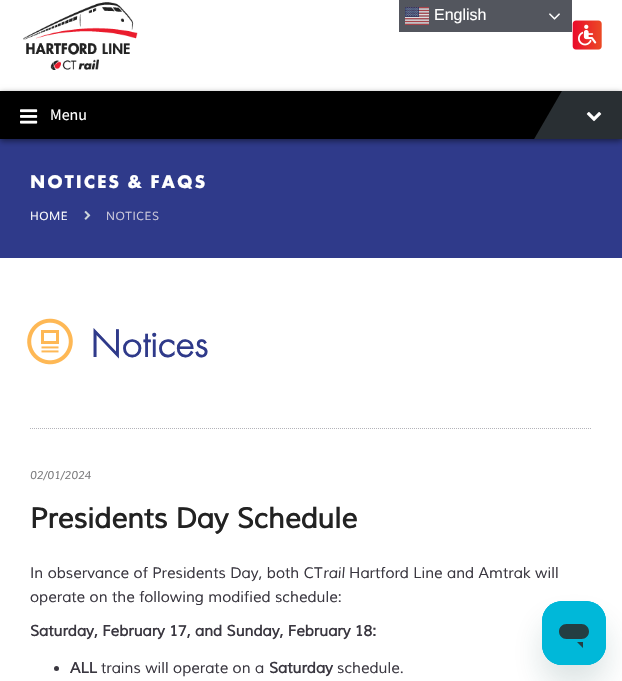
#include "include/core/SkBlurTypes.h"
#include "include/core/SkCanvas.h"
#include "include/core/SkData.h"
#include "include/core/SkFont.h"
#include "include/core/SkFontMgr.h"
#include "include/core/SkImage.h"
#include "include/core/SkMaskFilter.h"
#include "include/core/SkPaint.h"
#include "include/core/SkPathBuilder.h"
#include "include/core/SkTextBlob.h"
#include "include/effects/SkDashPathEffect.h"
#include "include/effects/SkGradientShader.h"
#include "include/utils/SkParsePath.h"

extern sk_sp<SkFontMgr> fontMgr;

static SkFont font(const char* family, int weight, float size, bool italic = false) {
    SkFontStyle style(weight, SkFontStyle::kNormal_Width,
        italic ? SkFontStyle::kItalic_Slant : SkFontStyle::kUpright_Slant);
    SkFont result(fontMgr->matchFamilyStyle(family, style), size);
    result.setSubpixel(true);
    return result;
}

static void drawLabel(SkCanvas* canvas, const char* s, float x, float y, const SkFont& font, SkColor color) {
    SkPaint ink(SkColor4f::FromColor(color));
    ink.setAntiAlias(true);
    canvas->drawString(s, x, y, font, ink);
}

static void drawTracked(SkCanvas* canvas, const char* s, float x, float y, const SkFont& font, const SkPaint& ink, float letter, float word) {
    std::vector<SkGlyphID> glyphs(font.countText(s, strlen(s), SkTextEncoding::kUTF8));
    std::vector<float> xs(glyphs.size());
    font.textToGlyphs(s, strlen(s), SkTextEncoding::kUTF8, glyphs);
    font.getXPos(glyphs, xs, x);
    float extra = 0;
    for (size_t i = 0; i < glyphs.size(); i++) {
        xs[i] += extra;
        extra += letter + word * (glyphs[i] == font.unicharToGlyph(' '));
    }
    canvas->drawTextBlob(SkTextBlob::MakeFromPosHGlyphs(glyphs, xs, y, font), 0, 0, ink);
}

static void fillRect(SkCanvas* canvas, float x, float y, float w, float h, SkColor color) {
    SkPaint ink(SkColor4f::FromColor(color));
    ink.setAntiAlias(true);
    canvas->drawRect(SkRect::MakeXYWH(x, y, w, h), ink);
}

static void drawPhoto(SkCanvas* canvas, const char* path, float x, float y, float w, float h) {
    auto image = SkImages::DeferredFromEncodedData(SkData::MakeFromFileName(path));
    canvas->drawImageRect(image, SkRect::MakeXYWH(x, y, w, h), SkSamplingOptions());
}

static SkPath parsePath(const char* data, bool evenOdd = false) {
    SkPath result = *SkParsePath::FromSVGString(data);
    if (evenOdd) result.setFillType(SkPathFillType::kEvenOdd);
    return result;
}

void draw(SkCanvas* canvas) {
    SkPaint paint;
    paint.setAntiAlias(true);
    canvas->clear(0xFFFFFFFF);
    fillRect(canvas, 399, 0, 173, 32, 0xFF53565E);
    drawPhoto(canvas, "assets/img1.png", 405, 7, 24, 18);
    SkFont font1 = font("Liberation Sans", 400, 16);
    drawLabel(canvas, "English", 434, 20, font1, 0xFFFFFFFF);
    drawPhoto(canvas, "assets/img2.png", 549, 13, 11, 7);
    drawPhoto(canvas, "assets/img3.png", 23, 2, 115, 68);
    drawPhoto(canvas, "assets/img4.png", 572, 20, 30, 30);
    fillRect(canvas, 0, 139, 622, 119, 0xFF2F3A8A);
    paint.setColor(0x80000000);
    paint.setMaskFilter(SkMaskFilter::MakeBlur(kNormal_SkBlurStyle, 3));
    canvas->drawRect(SkRect::MakeXYWH(0, 93, 622, 48), paint);
    paint.setMaskFilter(nullptr);
    fillRect(canvas, 0, 91, 562, 48, 0xFF000000);
    drawPhoto(canvas, "assets/img5.png", 20, 109, 18, 15);
    SkFont font2 = font("Source Sans Pro", 400, 16);
    drawLabel(canvas, "Menu", 50, 120, font2, 0xFFFFFFFF);
    canvas->save();
    canvas->clipRect(SkRect::MakeXYWH(0, 91, 622, 48));
    paint.setColor(0xFF292F33);
    canvas->drawPath(parsePath("M581 58L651 98L603 181L533 141Z"), paint);
    canvas->restore();
    drawPhoto(canvas, "assets/img6.png", 586, 112, 16, 10);
    SkFont font3 = font("Futura PT", 700, 19);
    paint.setColor(0xFFFFFFFF);
    drawTracked(canvas, "NOTICES & FAQS", 30, 188, font3, paint, 2, 0);
    SkFont font4 = font("Muli", 400, 11.5f, true);
    drawTracked(canvas, "HOME", 30, 220, font4, paint, 0.5f, 0);
    drawPhoto(canvas, "assets/img7.png", 84, 210, 7, 10);
    paint.setColor(0xFFCCC9DB);
    drawTracked(canvas, "NOTICES", 106, 220, font4, paint, 0.5f, 0);
    drawPhoto(canvas, "assets/img8.png", 27, 318, 46, 47);
    SkFont font5 = font("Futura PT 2", 700, 40);
    drawLabel(canvas, "Notices", 90, 357, font5, 0xFF2F3A8A);
    paint.setStroke(true);
    paint.setStrokeWidth(1);
    paint.setColor(0xFFB3B3B9);
    paint.setPathEffect(SkDashPathEffect::Make({{1, 1}}, 0));
    canvas->drawPath(parsePath("M30 428.5H592"), paint);
    paint.setPathEffect(nullptr);
    SkFont font6 = font("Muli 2", 400, 11.25f, true);
    paint.setStroke(false);
    paint.setColor(0xFF7A7A7C);
    drawTracked(canvas, "02/01/2024", 30, 479, font6, paint, 0.1f, 0);
    SkFont font7 = font("Muli", 700, 28, true);
    drawLabel(canvas, "Presidents Day Schedule", 30, 528, font7, 0xFF222222);
    SkFont font8 = font("Muli", 400, 15, true);
    drawLabel(canvas, "In observance of Presidents Day, both CT", 30, 578, font8, 0xFF3A3740);
    SkFont font9 = font("Muli 2", 400, 15, true);
    drawLabel(canvas, "rail", 323, 578, font9, 0xFF3A3740);
    drawLabel(canvas, "Hartford Line and Amtrak will", 349, 578, font8, 0xFF3A3740);
    drawLabel(canvas, "operate on the following modified schedule:", 30, 602, font8, 0xFF3A3740);
    SkFont font10 = font("Muli", 700, 15, true);
    drawLabel(canvas, "Saturday, February 17, and Sunday, February 18:", 30, 636, font10, 0xFF3A3740);
    paint.setColor(0xFF3A3740);
    canvas->drawCircle(56.5f, 668.5f, 2.5f, paint);
    drawLabel(canvas, "ALL", 70, 673, font10, 0xFF3A3740);
    drawLabel(canvas, "trains will operate on a", 101, 673, font8, 0xFF3A3740);
    drawLabel(canvas, "Saturday", 269, 673, font10, 0xFF3A3740);
    drawLabel(canvas, "schedule.", 337, 673, font8, 0xFF3A3740);
    paint.setColor(0x2617494D);
    paint.setMaskFilter(SkMaskFilter::MakeBlur(kNormal_SkBlurStyle, 15));
    canvas->drawRoundRect(SkRect::MakeXYWH(542, 621, 64, 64), 20, 20, paint);
    paint.setMaskFilter(nullptr);
    drawPhoto(canvas, "assets/img9.png", 542, 601, 64, 64);
}
